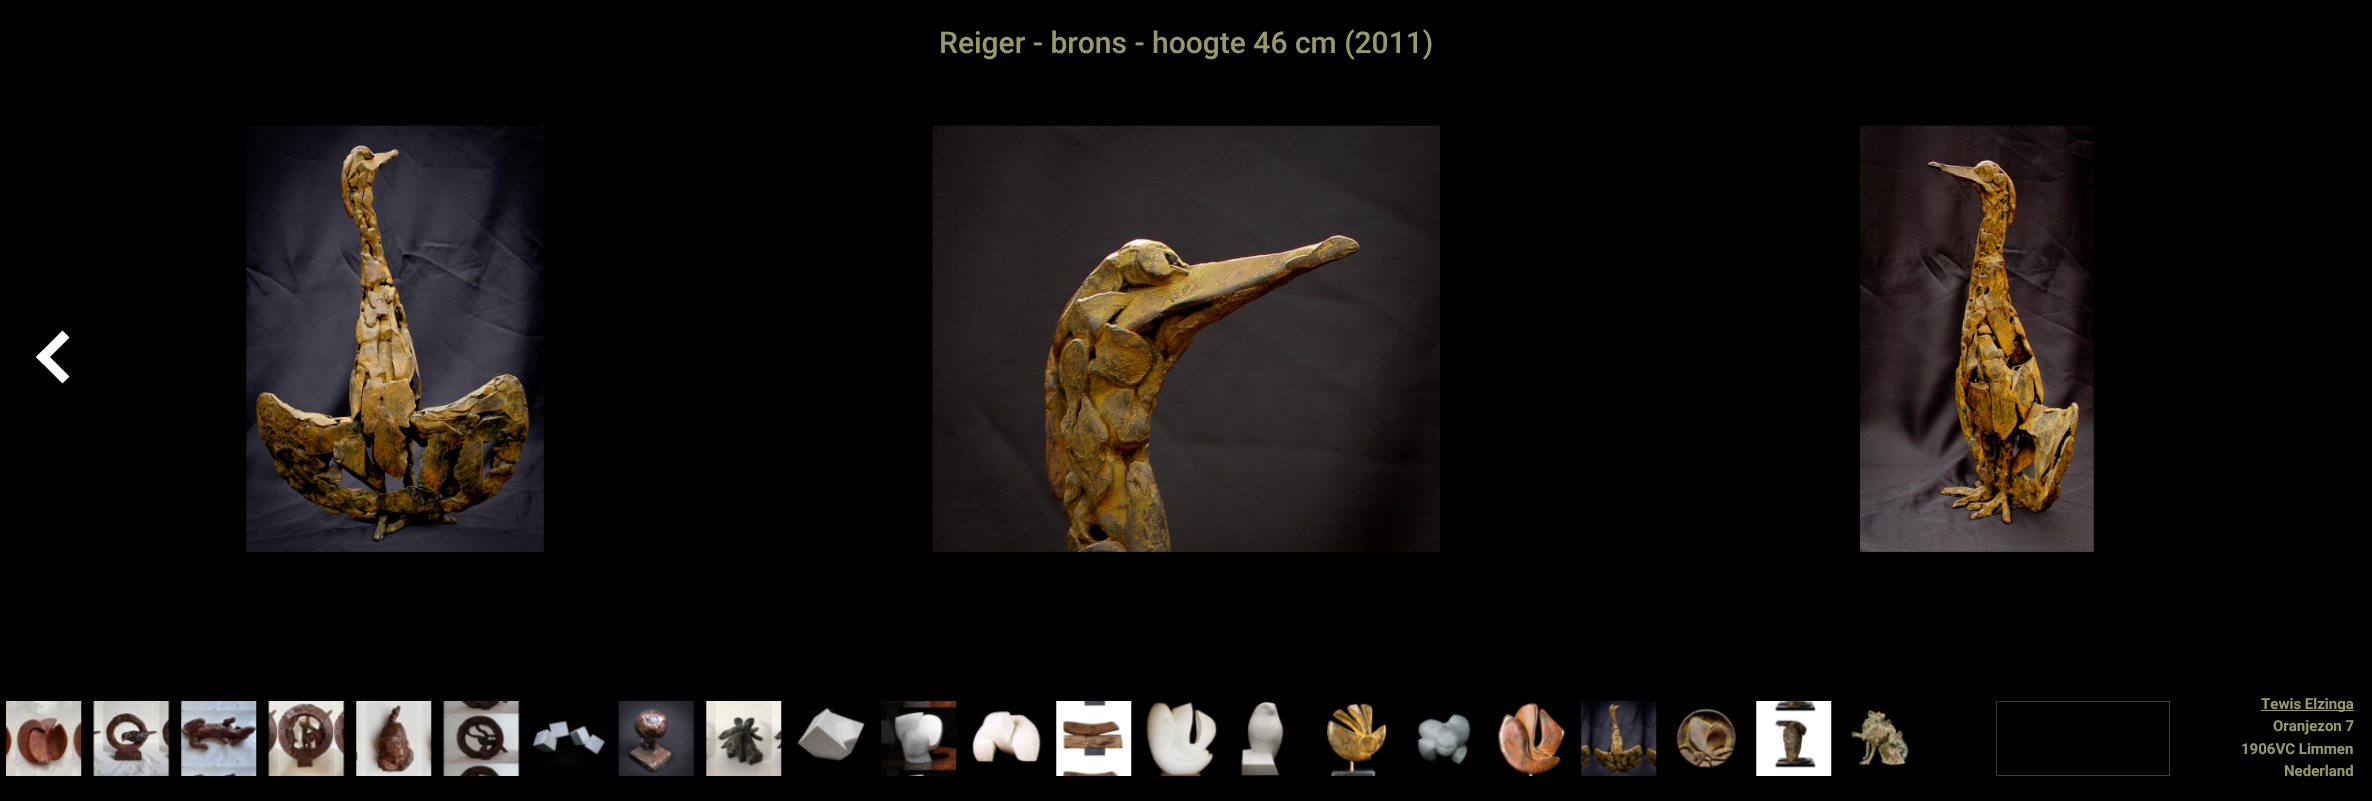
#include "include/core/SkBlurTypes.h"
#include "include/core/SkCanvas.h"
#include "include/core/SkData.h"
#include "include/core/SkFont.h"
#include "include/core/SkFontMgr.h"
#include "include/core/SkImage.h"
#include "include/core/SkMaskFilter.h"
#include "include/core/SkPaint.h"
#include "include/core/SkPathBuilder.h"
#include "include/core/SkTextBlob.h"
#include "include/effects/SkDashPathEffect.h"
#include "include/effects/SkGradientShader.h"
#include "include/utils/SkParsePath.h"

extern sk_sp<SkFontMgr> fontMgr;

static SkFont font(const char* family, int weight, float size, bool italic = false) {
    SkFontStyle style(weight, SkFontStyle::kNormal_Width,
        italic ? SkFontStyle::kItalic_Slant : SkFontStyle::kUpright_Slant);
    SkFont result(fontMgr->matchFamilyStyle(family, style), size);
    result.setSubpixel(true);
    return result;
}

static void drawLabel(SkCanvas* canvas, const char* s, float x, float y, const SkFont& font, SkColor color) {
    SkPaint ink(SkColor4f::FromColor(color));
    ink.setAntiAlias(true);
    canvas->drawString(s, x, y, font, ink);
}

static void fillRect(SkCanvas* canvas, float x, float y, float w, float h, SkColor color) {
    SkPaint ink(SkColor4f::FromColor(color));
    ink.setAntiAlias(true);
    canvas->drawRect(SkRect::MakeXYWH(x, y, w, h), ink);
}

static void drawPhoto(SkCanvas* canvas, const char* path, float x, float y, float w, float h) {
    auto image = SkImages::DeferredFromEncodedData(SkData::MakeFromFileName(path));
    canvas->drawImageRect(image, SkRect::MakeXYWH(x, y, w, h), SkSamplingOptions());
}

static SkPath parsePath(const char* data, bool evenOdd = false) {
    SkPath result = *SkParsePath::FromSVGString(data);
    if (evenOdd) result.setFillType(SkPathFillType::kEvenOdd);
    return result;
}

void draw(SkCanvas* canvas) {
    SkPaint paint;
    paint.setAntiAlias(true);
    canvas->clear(0xFF000000);
    SkFont font1 = font("Roboto", 500, 30);
    drawLabel(canvas, "Reiger - brons - hoogte 46 cm (2011)", 939, 53, font1, 0xFF999966);
    paint.setColor(0xFFFFFFFF);
    canvas->drawPath(parsePath("M69.5 376.5L62.5 383.5L36 357L43 350Z"), paint);
    canvas->drawPath(parsePath("M69.5 337.5L43 364L36 357L62.5 330.5Z"), paint);
    drawPhoto(canvas, "assets/img1.png", 246, 125, 298, 427);
    drawPhoto(canvas, "assets/img2.png", 932, 125, 508, 427);
    drawPhoto(canvas, "assets/img3.png", 1860, 125, 234, 427);
    drawPhoto(canvas, "assets/img4.png", 6, 701, 76, 75);
    drawPhoto(canvas, "assets/img5.png", 93, 701, 77, 75);
    drawPhoto(canvas, "assets/img6.png", 181, 701, 76, 75);
    drawPhoto(canvas, "assets/img7.png", 268, 701, 77, 75);
    drawPhoto(canvas, "assets/img8.png", 356, 701, 76, 75);
    drawPhoto(canvas, "assets/img9.png", 443, 701, 77, 75);
    drawPhoto(canvas, "assets/img10.png", 531, 720, 75, 46);
    drawPhoto(canvas, "assets/img11.png", 618, 701, 77, 75);
    drawPhoto(canvas, "assets/img12.png", 706, 701, 76, 75);
    drawPhoto(canvas, "assets/img13.png", 797, 708, 68, 53);
    drawPhoto(canvas, "assets/img14.png", 881, 701, 76, 75);
    drawPhoto(canvas, "assets/img15.png", 972, 711, 69, 52);
    drawPhoto(canvas, "assets/img16.png", 1056, 701, 76, 75);
    drawPhoto(canvas, "assets/img17.png", 1145, 701, 72, 75);
    drawPhoto(canvas, "assets/img18.png", 1241, 701, 43, 75);
    drawPhoto(canvas, "assets/img19.png", 1326, 701, 61, 75);
    drawPhoto(canvas, "assets/img20.png", 1417, 714, 54, 51);
    drawPhoto(canvas, "assets/img21.png", 1495, 701, 71, 75);
    drawPhoto(canvas, "assets/img22.png", 1581, 701, 76, 75);
    drawPhoto(canvas, "assets/img23.png", 1676, 708, 61, 61);
    drawPhoto(canvas, "assets/img24.png", 1756, 701, 76, 75);
    drawPhoto(canvas, "assets/img25.png", 1851, 710, 59, 57);
    fillRect(canvas, 1996, 701, 1, 75, 0xFF404040);
    fillRect(canvas, 1998, 701, 171, 1, 0xFF404040);
    fillRect(canvas, 2169, 701, 1, 75, 0xFF404040);
    fillRect(canvas, 2261, 710, 93, 1, 0xFF999966);
    SkFont font2 = font("Roboto", 700, 15);
    drawLabel(canvas, "Tewis Elzinga", 2261, 709, font2, 0xFF999966);
    drawLabel(canvas, "Oranjezon 7", 2273, 731, font2, 0xFF999966);
    drawLabel(canvas, "1906VC Limmen", 2241, 754, font2, 0xFF999966);
    drawLabel(canvas, "Nederland", 2284, 776, font2, 0xFF999966);
    fillRect(canvas, 1998, 775, 171, 1, 0xFF404040);
}
